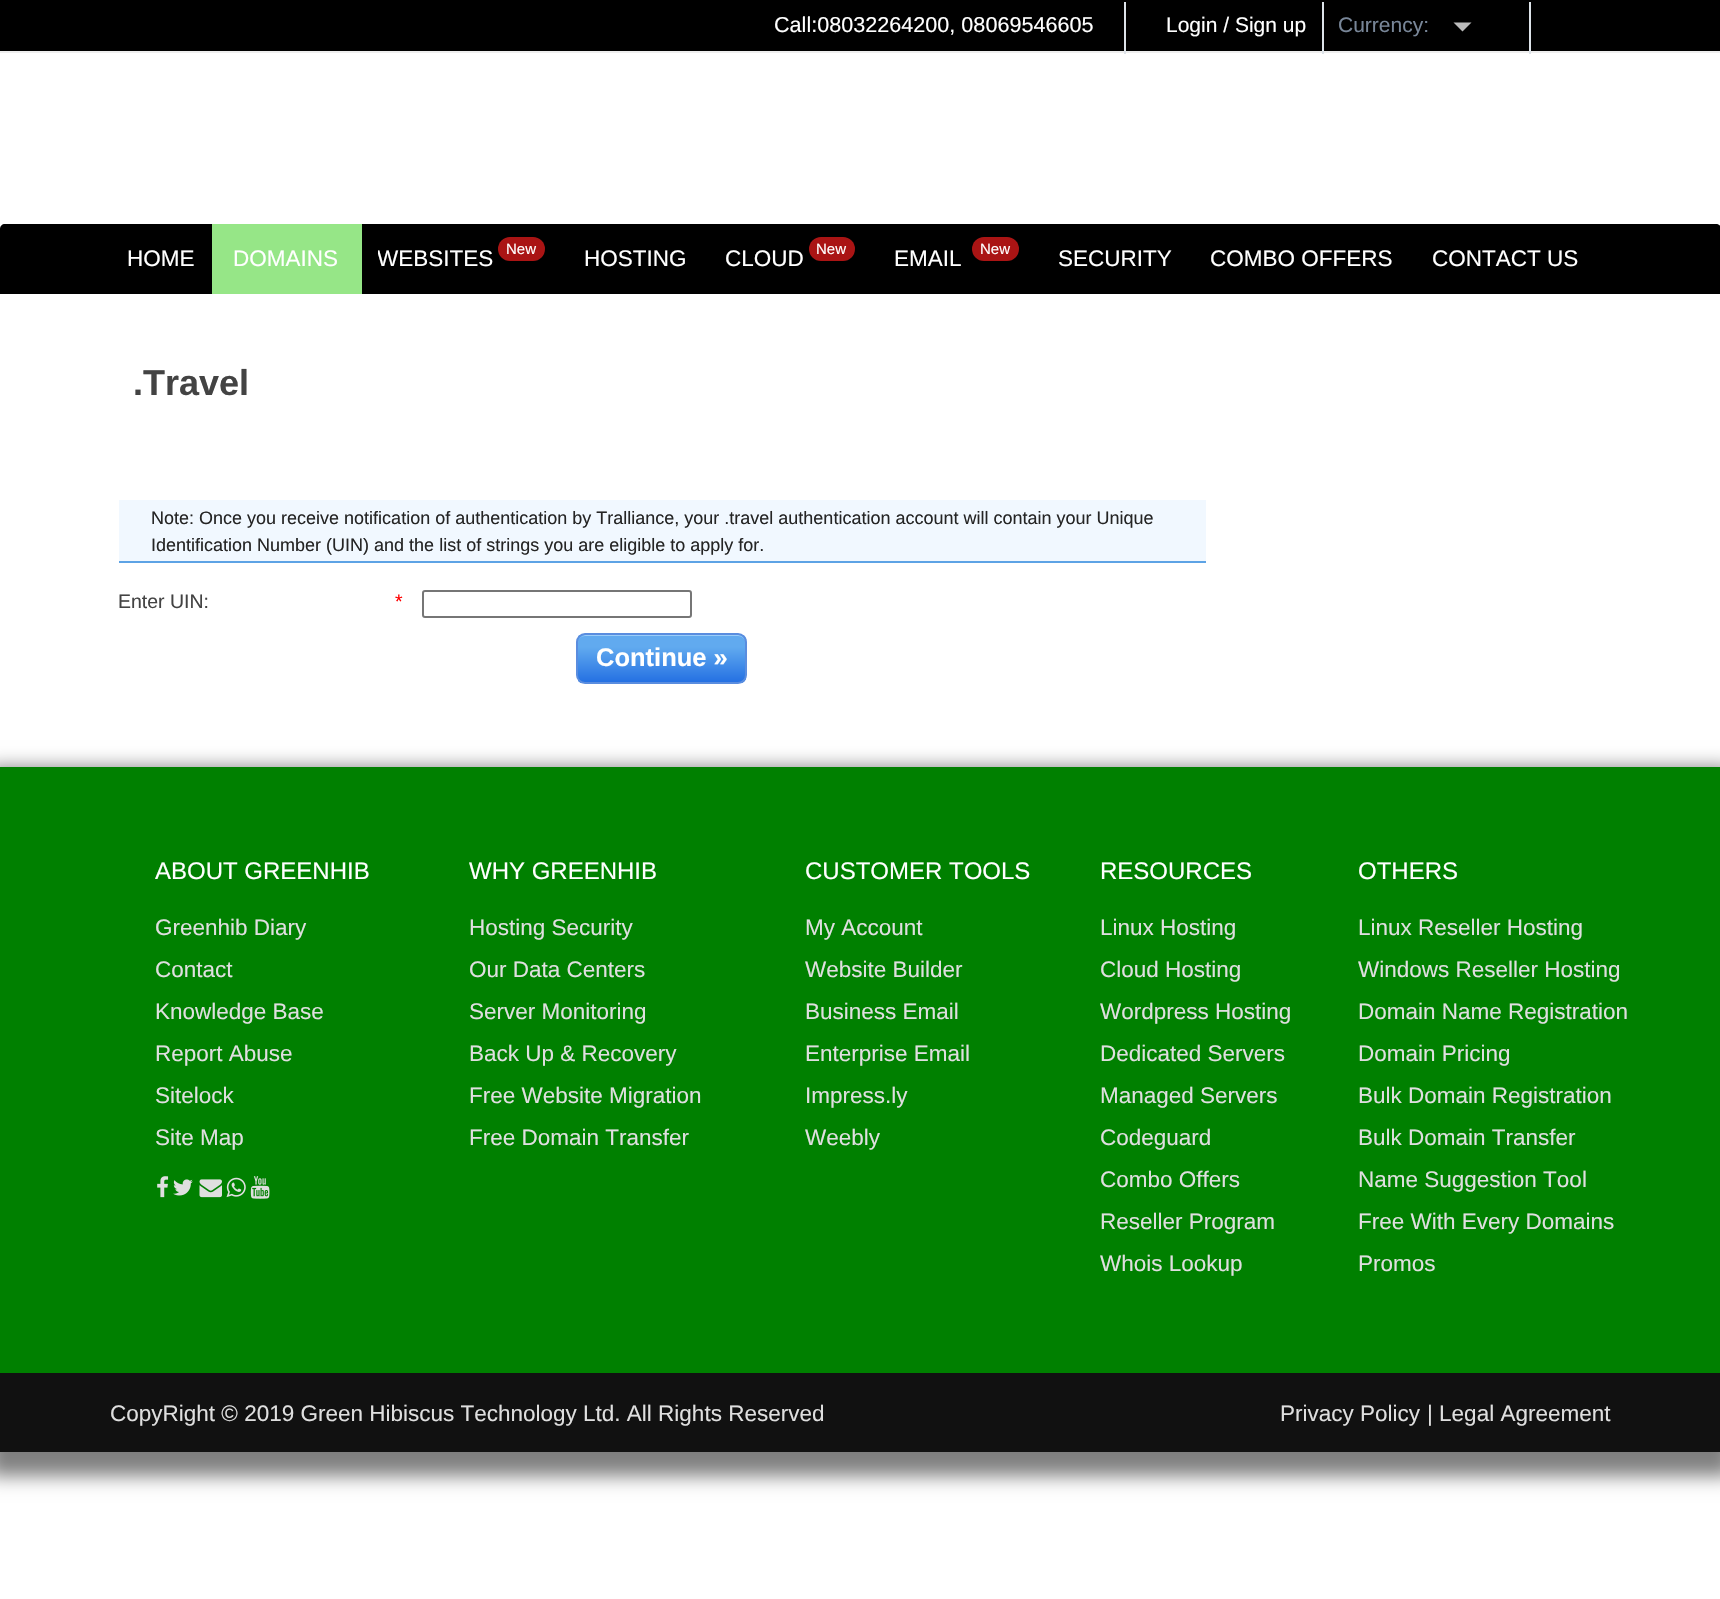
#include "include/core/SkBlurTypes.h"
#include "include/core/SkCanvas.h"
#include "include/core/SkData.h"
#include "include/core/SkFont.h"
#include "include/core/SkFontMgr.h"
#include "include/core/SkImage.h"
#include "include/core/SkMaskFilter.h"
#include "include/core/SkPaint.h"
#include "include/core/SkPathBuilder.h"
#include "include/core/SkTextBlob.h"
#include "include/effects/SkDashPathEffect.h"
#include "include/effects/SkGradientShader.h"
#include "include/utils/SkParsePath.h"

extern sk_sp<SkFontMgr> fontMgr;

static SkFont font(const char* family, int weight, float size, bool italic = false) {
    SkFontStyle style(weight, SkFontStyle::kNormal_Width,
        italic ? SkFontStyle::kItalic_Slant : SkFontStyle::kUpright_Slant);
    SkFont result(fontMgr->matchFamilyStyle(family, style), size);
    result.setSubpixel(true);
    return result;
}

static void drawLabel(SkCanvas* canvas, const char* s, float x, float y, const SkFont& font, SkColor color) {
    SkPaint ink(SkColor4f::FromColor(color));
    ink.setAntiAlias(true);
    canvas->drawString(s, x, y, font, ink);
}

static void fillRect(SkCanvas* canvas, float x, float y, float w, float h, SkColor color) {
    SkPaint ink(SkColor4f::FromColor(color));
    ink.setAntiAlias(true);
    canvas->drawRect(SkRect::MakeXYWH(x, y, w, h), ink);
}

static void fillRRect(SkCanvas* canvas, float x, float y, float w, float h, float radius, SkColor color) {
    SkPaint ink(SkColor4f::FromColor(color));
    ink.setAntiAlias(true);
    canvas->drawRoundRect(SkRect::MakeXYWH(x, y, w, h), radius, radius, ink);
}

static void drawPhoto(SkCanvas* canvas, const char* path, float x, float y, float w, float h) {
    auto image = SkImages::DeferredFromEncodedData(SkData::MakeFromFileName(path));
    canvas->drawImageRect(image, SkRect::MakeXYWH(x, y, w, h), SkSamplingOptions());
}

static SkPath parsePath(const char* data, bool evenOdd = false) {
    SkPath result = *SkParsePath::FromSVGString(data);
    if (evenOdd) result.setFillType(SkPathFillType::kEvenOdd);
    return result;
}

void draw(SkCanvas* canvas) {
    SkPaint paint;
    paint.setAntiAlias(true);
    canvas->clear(0xFFFFFFFF);
    fillRect(canvas, 0, 0, 1720, 51, 0xFF000000);
    fillRect(canvas, 0, 51, 1720, 2, 0xFFEEEEEE);
    SkFont font1 = font("Liberation Sans", 400, 21.6f);
    drawLabel(canvas, "Call:08032264200, 08069546605", 774, 32, font1, 0xFFFFFFFF);
    fillRect(canvas, 1124, 2, 2, 52, 0xFFDDE3E9);
    fillRect(canvas, 1322, 2, 2, 52, 0xFFDDE3E9);
    SkFont font2 = font("Liberation Sans", 400, 21);
    drawLabel(canvas, "Login / Sign up", 1166, 32, font2, 0xFFFFFFFF);
    fillRect(canvas, 1529, 2, 2, 52, 0xFFDDE3E9);
    drawLabel(canvas, "Currency:", 1338, 32, font2, 0xFF788698);
    paint.setColor(0xFFBBBBBB);
    canvas->drawPath(parsePath("M1453.5 22.5H1471.5L1462.5 31.5Z"), paint);
    paint.setColor(0xFF000000);
    canvas->drawPath(parsePath("M5 224H1716C1719 224 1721 226 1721 229V294H0V229C0 226 2 224 5 224Z"), paint);
    SkFont font3 = font("Liberation Sans", 400, 22.5f);
    drawLabel(canvas, "HOME", 127, 266, font3, 0xFFFFFFFF);
    fillRect(canvas, 212, 224, 150, 70, 0xFF96E687);
    drawLabel(canvas, "DOMAINS", 233, 266, font3, 0xFFFFFFFF);
    canvas->save();
    canvas->clipRect(SkRect::MakeXYWH(378, 230, 167, 57));
    drawLabel(canvas, "WEBSITES", 377, 266, font3, 0xFFFFFFFF);
    canvas->restore();
    fillRRect(canvas, 498, 237, 47, 24, 12, 0xFFAA1414);
    SkFont font4 = font("Liberation Sans", 400, 15);
    drawLabel(canvas, "New", 506, 254, font4, 0xFFFFFFFF);
    drawLabel(canvas, "HOSTING", 584, 266, font3, 0xFFFFFFFF);
    drawLabel(canvas, "CLOUD", 725, 266, font3, 0xFFFFFFFF);
    fillRRect(canvas, 809, 237, 46, 24, 12, 0xFFAA1414);
    drawLabel(canvas, "New", 816, 254, font4, 0xFFFFFFFF);
    drawLabel(canvas, "EMAIL", 894, 266, font3, 0xFFFFFFFF);
    fillRRect(canvas, 972, 237, 47, 24, 12, 0xFFAA1414);
    drawLabel(canvas, "New", 980, 254, font4, 0xFFFFFFFF);
    drawLabel(canvas, "SECURITY", 1058, 266, font3, 0xFFFFFFFF);
    drawLabel(canvas, "COMBO OFFERS", 1210, 266, font3, 0xFFFFFFFF);
    drawLabel(canvas, "CONTACT US", 1432, 266, font3, 0xFFFFFFFF);
    SkFont font5 = font("Liberation Sans", 700, 36);
    drawLabel(canvas, ".Travel", 133, 395, font5, 0xFF434343);
    fillRect(canvas, 119, 500, 1087, 61, 0xFFF1F8FF);
    fillRect(canvas, 119, 561, 1087, 2, 0xFF5DA3E5);
    SkFont font6 = font("Liberation Sans", 400, 18);
    drawLabel(canvas, "Note: Once you receive notification of authentication by Tralliance, your .travel authentication account will contain your Unique", 151, 524, font6, 0xFF252525);
    drawLabel(canvas, "Identification Number (UIN) and the list of strings you are eligible to apply for.", 151, 551, font6, 0xFF252525);
    SkFont font7 = font("Liberation Sans", 400, 19.5f);
    drawLabel(canvas, "Enter UIN:", 118, 608, font7, 0xFF434343);
    drawLabel(canvas, "*", 395, 608, font7, 0xFFFF0000);
    paint.setStroke(true);
    paint.setStrokeWidth(2);
    paint.setColor(0xFF767676);
    canvas->drawRoundRect(SkRect::MakeXYWH(423, 591, 268, 26), 2, 2, paint);
    canvas->save();
    canvas->clipPath(parsePath("M585 633H738C743 633 747 637 747 642V675C747 680 743 684 738 684H585C580 684 576 680 576 675V642C576 637 580 633 585 633Z"), true);
    paint.setStroke(false);
    {
        const SkColor colors[] = {0xFF61AAEF, 0xFF61AAEF, 0xFF236FE2};
        const float stops[] = {0, 0.25f, 1};
        const SkPoint ends[] = {{662, 635}, {662, 683}};
        paint.setShader(SkGradientShader::MakeLinear(ends, colors, stops, 3, SkTileMode::kClamp));
        paint.setAlpha(255);
    }
    canvas->drawRect(SkRect::MakeXYWH(578, 635, 168, 48), paint);
    canvas->restore();
    paint.setShader(nullptr);
    paint.setColor(0xFF9ACDF9);
    canvas->drawPath(parsePath("M585 636H738C742 636 746 639 746 644V643C746 639 742 635 738 635H586C582 635 578 639 578 643V644C578 639 581 636 585 636Z"), paint);
    paint.setStroke(true);
    paint.setColor(0xFF5A8DDF);
    canvas->drawRoundRect(SkRect::MakeXYWH(577, 634, 169, 49), 8, 8, paint);
    SkFont font8 = font("Liberation Sans", 700, 25.5f);
    drawLabel(canvas, "Continue »", 596, 666, font8, 0xFFFFFFFF);
    paint.setStroke(false);
    paint.setColor(0x80000000);
    paint.setMaskFilter(SkMaskFilter::MakeBlur(kNormal_SkBlurStyle, 9));
    canvas->drawRect(SkRect::MakeXYWH(-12, 767, 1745, 709), paint);
    paint.setMaskFilter(nullptr);
    fillRect(canvas, 0, 767, 1720, 606, 0xFF008000);
    SkFont font9 = font("Liberation Sans", 400, 24);
    drawLabel(canvas, "ABOUT GREENHIB", 155, 879, font9, 0xFFFFFFFF);
    drawLabel(canvas, "Greenhib Diary", 155, 935, font3, 0xFFDFDFDF);
    drawLabel(canvas, "Contact", 155, 977, font3, 0xFFDFDFDF);
    drawLabel(canvas, "Knowledge Base", 155, 1019, font3, 0xFFDFDFDF);
    drawLabel(canvas, "Report Abuse", 155, 1061, font3, 0xFFDFDFDF);
    drawLabel(canvas, "Sitelock", 155, 1103, font3, 0xFFDFDFDF);
    drawLabel(canvas, "Site Map", 155, 1145, font3, 0xFFDFDFDF);
    drawPhoto(canvas, "assets/img1.png", 157, 1176, 12, 22);
    drawPhoto(canvas, "assets/img2.png", 173, 1179, 20, 17);
    drawPhoto(canvas, "assets/img3.png", 199, 1179, 23, 19);
    drawPhoto(canvas, "assets/img4.png", 226, 1177, 20, 21);
    drawPhoto(canvas, "assets/img5.png", 250, 1176, 20, 23);
    drawLabel(canvas, "WHY GREENHIB", 469, 879, font9, 0xFFFFFFFF);
    drawLabel(canvas, "Hosting Security", 469, 935, font3, 0xFFDFDFDF);
    drawLabel(canvas, "Our Data Centers", 469, 977, font3, 0xFFDFDFDF);
    drawLabel(canvas, "Server Monitoring", 469, 1019, font3, 0xFFDFDFDF);
    drawLabel(canvas, "Back Up & Recovery", 469, 1061, font3, 0xFFDFDFDF);
    drawLabel(canvas, "Free Website Migration", 469, 1103, font3, 0xFFDFDFDF);
    drawLabel(canvas, "Free Domain Transfer", 469, 1145, font3, 0xFFDFDFDF);
    drawLabel(canvas, "CUSTOMER TOOLS", 805, 879, font9, 0xFFFFFFFF);
    drawLabel(canvas, "My Account", 805, 935, font3, 0xFFDFDFDF);
    drawLabel(canvas, "Website Builder", 805, 977, font3, 0xFFDFDFDF);
    drawLabel(canvas, "Business Email", 805, 1019, font3, 0xFFDFDFDF);
    drawLabel(canvas, "Enterprise Email", 805, 1061, font3, 0xFFDFDFDF);
    drawLabel(canvas, "Impress.ly", 805, 1103, font3, 0xFFDFDFDF);
    drawLabel(canvas, "Weebly", 805, 1145, font3, 0xFFDFDFDF);
    drawLabel(canvas, "RESOURCES", 1100, 879, font9, 0xFFFFFFFF);
    drawLabel(canvas, "Linux Hosting", 1100, 935, font3, 0xFFDFDFDF);
    drawLabel(canvas, "Cloud Hosting", 1100, 977, font3, 0xFFDFDFDF);
    drawLabel(canvas, "Wordpress Hosting", 1100, 1019, font3, 0xFFDFDFDF);
    drawLabel(canvas, "Dedicated Servers", 1100, 1061, font3, 0xFFDFDFDF);
    drawLabel(canvas, "Managed Servers", 1100, 1103, font3, 0xFFDFDFDF);
    drawLabel(canvas, "Codeguard", 1100, 1145, font3, 0xFFDFDFDF);
    drawLabel(canvas, "Combo Offers", 1100, 1187, font3, 0xFFDFDFDF);
    drawLabel(canvas, "Reseller Program", 1100, 1229, font3, 0xFFDFDFDF);
    drawLabel(canvas, "Whois Lookup", 1100, 1271, font3, 0xFFDFDFDF);
    drawLabel(canvas, "OTHERS", 1358, 879, font9, 0xFFFFFFFF);
    drawLabel(canvas, "Linux Reseller Hosting", 1358, 935, font3, 0xFFDFDFDF);
    drawLabel(canvas, "Windows Reseller Hosting", 1358, 977, font3, 0xFFDFDFDF);
    drawLabel(canvas, "Domain Name Registration", 1358, 1019, font3, 0xFFDFDFDF);
    drawLabel(canvas, "Domain Pricing", 1358, 1061, font3, 0xFFDFDFDF);
    drawLabel(canvas, "Bulk Domain Registration", 1358, 1103, font3, 0xFFDFDFDF);
    drawLabel(canvas, "Bulk Domain Transfer", 1358, 1145, font3, 0xFFDFDFDF);
    drawLabel(canvas, "Name Suggestion Tool", 1358, 1187, font3, 0xFFDFDFDF);
    drawLabel(canvas, "Free With Every Domains", 1358, 1229, font3, 0xFFDFDFDF);
    drawLabel(canvas, "Promos", 1358, 1271, font3, 0xFFDFDFDF);
    fillRect(canvas, 0, 1373, 1720, 79, 0xFF111111);
    drawLabel(canvas, "CopyRight © 2019 Green Hibiscus Technology Ltd. All Rights Reserved", 110, 1421, font3, 0xFFDFDFDF);
    drawLabel(canvas, "Privacy Policy", 1280, 1421, font3, 0xFFDFDFDF);
    drawLabel(canvas, "| Legal Agreement", 1427, 1421, font3, 0xFFDFDFDF);
}
